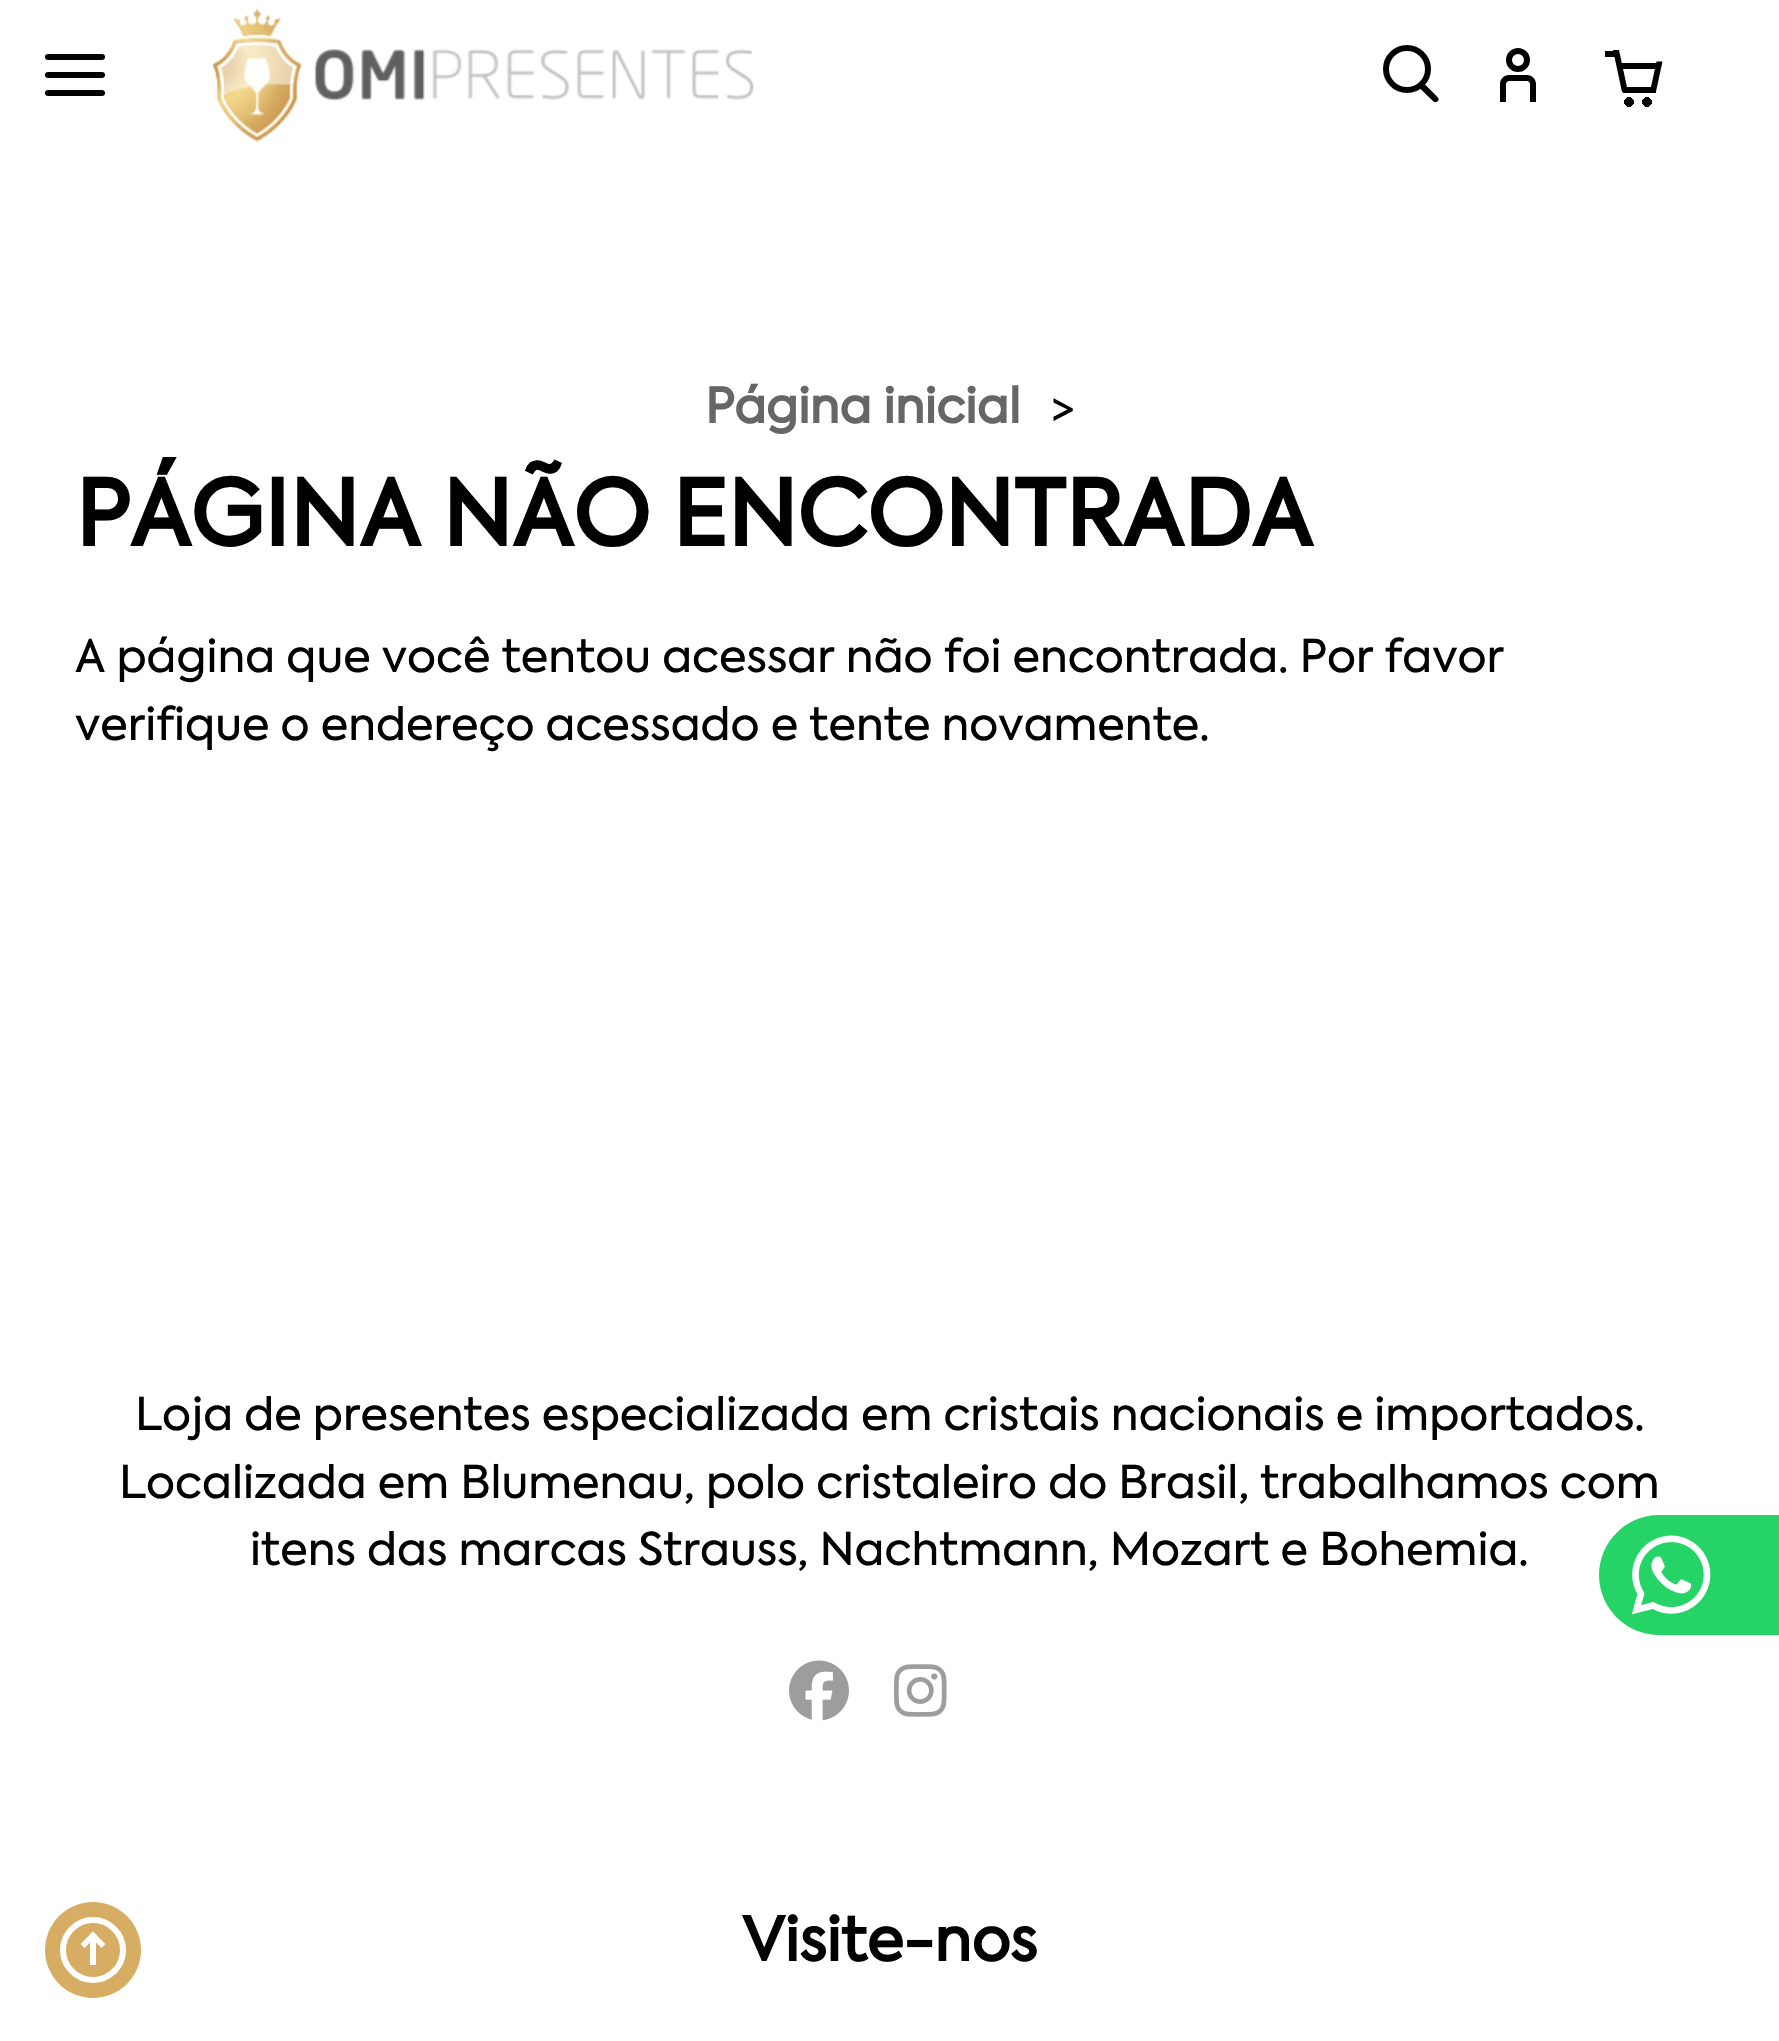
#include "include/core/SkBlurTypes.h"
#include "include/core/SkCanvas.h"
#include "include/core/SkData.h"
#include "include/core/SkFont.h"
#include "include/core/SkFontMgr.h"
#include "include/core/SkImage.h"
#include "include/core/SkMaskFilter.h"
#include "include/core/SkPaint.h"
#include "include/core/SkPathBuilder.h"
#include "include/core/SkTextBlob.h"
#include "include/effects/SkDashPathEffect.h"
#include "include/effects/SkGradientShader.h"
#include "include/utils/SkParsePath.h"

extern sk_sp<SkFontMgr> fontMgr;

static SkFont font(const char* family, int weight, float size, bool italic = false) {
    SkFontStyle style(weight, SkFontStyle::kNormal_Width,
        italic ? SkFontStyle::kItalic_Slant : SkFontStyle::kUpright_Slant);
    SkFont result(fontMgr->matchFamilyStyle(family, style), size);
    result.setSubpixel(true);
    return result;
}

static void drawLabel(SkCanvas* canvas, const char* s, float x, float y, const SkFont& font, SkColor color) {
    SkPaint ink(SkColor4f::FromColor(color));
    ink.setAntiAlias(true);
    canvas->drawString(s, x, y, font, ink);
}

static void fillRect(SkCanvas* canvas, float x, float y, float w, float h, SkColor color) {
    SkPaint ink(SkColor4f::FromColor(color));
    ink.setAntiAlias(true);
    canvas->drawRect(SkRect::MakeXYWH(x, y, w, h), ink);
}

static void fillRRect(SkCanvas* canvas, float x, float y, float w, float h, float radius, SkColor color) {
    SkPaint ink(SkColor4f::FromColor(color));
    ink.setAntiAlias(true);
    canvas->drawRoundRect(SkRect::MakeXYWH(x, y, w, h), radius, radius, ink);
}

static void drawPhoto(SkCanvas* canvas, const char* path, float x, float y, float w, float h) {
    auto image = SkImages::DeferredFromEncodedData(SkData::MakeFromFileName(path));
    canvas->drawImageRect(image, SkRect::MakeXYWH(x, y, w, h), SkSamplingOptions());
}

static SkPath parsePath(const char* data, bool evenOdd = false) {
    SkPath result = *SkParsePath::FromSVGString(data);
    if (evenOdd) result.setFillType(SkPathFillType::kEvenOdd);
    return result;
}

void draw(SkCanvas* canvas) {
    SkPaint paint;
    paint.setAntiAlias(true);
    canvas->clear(0xFFFFFFFF);
    fillRRect(canvas, 45, 72, 60, 6, 3, 0xFF010101);
    fillRRect(canvas, 45, 54, 60, 6, 3, 0xFF010101);
    fillRRect(canvas, 45, 90, 60, 6, 3, 0xFF010101);
    drawPhoto(canvas, "assets/img1.png", 213, 8, 541, 135);
    paint.setStroke(true);
    paint.setStrokeWidth(6);
    paint.setColor(0xFF010101);
    canvas->drawCircle(1407, 69, 21, paint);
    paint.setStroke(false);
    canvas->drawPath(parsePath("M1420.5 84.5C1422 83.5 1424 83.5 1425 84.5L1437.5 97C1439 98.5 1439 100.5 1437.5 101.5C1436.5 102.5 1434.5 102.5 1433.5 101.5L1420.5 89C1419.5 87.5 1419.5 85.5 1420.5 84.5Z"), paint);
    paint.setStroke(true);
    canvas->drawCircle(1518, 60, 9, paint);
    paint.setStroke(false);
    canvas->drawPath(parsePath("M1509 75H1527C1532 75 1536 79 1536 84V102H1500V84C1500 79 1504 75 1509 75ZM1509 81H1527C1528.5 81 1530 82.5 1530 84V102H1506V84C1506 82.5 1507.5 81 1509 81Z", true), paint);
    {
        const SkColor colors[] = {0xFF010101, 0xFFFFFFFF};
        const float stops[] = {0.6f, 0.6f};
        paint.setShader(SkGradientShader::MakeRadial({1629, 102}, 8, colors, stops, 2, SkTileMode::kClamp));
        paint.setAlpha(255);
    }
    canvas->drawRect(SkRect::MakeXYWH(1624, 97, 10, 10), paint);
    {
        const SkColor colors[] = {0xFF010101, 0xFFFFFFFF};
        const float stops[] = {0.6f, 0.6f};
        paint.setShader(SkGradientShader::MakeRadial({1647, 102}, 8, colors, stops, 2, SkTileMode::kClamp));
        paint.setAlpha(255);
    }
    canvas->drawRect(SkRect::MakeXYWH(1642, 97, 10, 10), paint);
    fillRect(canvas, 1605, 51, 12, 6, 0xFF010101);
    fillRect(canvas, 1623, 87, 33, 6, 0xFF010101);
    fillRect(canvas, 1620, 63, 36, 6, 0xFF010101);
    paint.setShader(nullptr);
    paint.setColor(0xFF010101);
    canvas->drawPath(parsePath("M1613 50H1619L1628 92H1622ZM1656.5 61.5H1662.5L1656 91.5H1650Z"), paint);
    SkFont font1 = font("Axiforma", 700, 48);
    drawLabel(canvas, "Página inicial", 705, 423, font1, 0xFF666666);
    SkFont font2 = font("Axiforma", 400, 42);
    drawLabel(canvas, ">", 1051, 423, font2, 0xFF010101);
    SkFont font3 = font("Axiforma", 700, 90);
    drawLabel(canvas, "PÁGINA NÃO ENCONTRADA", 75, 546, font3, 0xFF010101);
    SkFont font4 = font("Axiforma", 400, 45);
    drawLabel(canvas, "A página que você tentou acessar não foi encontrada. Por favor", 75, 672, font4, 0xFF010101);
    drawLabel(canvas, "verifique o endereço acessado e tente novamente.", 75, 740, font4, 0xFF010101);
    drawLabel(canvas, "Loja de presentes especializada em cristais nacionais e importados.", 135, 1430, font4, 0xFF010101);
    drawLabel(canvas, "Localizada em Blumenau, polo cristaleiro do Brasil, trabalhamos com", 119, 1498, font4, 0xFF010101);
    drawLabel(canvas, "itens das marcas Strauss, Nachtmann, Mozart e Bohemia.", 250, 1565, font4, 0xFF010101);
    drawPhoto(canvas, "assets/img2.png", 789, 1660, 60, 61);
    drawPhoto(canvas, "assets/img3.png", 894, 1664, 53, 53);
    SkFont font5 = font("Axiforma", 700, 60);
    drawLabel(canvas, "Visite-nos", 742, 1961, font5, 0xFF010101);
    paint.setColor(0xFF25D366);
    canvas->drawPath(parsePath("M1659 1515H1779V1635H1659C1626 1635 1599 1608 1599 1575C1599 1542 1626 1515 1659 1515Z"), paint);
    drawPhoto(canvas, "assets/img4.png", 1631, 1535, 80, 80);
    paint.setColor(0xFFD7AC63);
    canvas->drawCircle(93, 1950, 48, paint);
    paint.setStroke(true);
    paint.setColor(0xFFFFFFFF);
    canvas->drawCircle(93, 1950, 30, paint);
    fillRect(canvas, 90, 1935, 6, 30, 0xFFFFFFFF);
    paint.setStroke(false);
    canvas->drawPath(parsePath("M93 1931.5L105.5 1944L101.5 1948L89 1935.5Z"), paint);
    canvas->drawPath(parsePath("M93 1931.5L97 1935.5L84.5 1948L80.5 1944Z"), paint);
}
